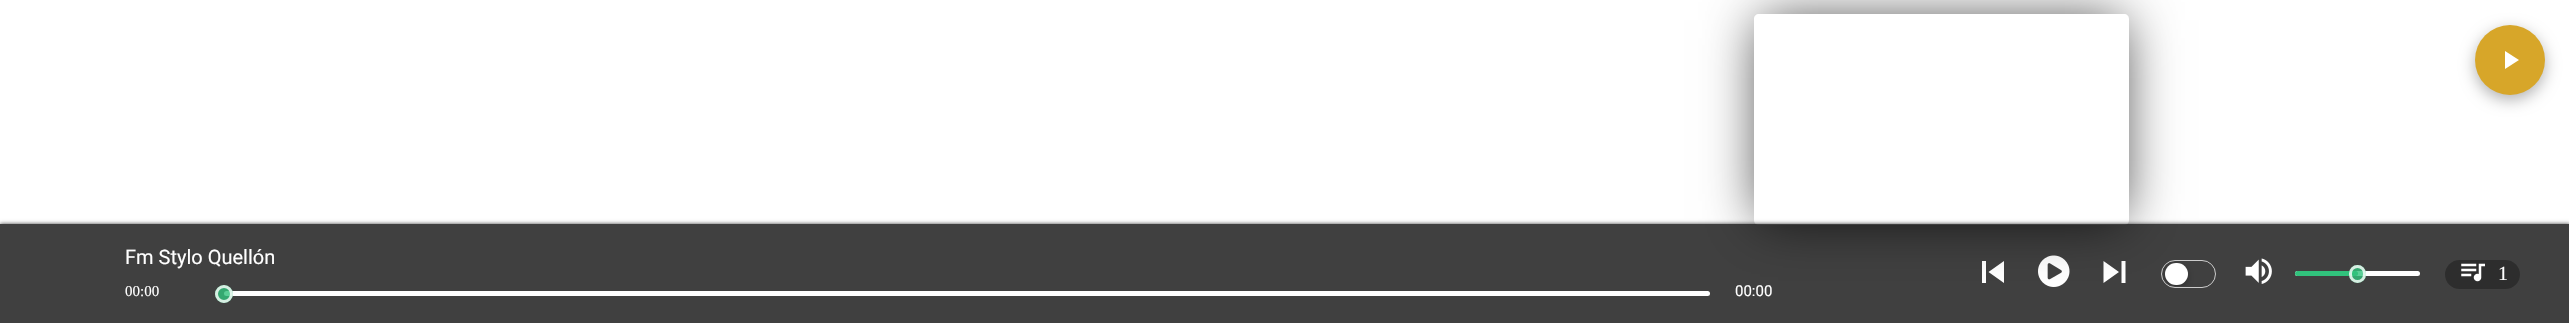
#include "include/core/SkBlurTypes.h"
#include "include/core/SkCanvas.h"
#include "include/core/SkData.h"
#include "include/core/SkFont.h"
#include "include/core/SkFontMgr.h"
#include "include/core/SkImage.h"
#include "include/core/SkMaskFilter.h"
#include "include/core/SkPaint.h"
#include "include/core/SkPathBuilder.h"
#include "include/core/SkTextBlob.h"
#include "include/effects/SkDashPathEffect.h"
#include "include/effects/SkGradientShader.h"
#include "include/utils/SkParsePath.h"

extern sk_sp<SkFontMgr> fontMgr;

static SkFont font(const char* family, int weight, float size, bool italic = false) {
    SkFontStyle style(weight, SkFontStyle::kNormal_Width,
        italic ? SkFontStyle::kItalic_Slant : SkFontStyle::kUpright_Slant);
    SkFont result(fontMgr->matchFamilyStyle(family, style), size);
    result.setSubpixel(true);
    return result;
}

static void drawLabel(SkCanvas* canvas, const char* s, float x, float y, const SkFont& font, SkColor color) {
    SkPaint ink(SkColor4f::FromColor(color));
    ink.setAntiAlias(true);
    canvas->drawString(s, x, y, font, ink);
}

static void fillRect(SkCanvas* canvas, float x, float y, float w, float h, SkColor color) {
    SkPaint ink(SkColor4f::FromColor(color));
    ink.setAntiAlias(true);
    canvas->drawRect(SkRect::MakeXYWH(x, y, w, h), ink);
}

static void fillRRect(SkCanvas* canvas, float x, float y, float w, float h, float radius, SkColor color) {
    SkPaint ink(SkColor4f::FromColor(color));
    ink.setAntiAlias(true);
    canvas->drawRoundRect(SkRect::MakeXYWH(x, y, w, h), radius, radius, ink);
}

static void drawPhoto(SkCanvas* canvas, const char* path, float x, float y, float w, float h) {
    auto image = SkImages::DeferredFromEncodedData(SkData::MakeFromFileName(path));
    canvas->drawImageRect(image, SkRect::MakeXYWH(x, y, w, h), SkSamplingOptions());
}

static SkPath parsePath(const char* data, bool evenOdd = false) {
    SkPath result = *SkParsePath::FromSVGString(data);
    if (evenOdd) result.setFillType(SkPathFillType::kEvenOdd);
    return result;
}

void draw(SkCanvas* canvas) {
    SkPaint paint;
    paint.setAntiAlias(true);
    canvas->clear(0xFFFFFFFF);
    paint.setColor(0xFF403F3F);
    paint.setMaskFilter(SkMaskFilter::MakeBlur(kNormal_SkBlurStyle, 2));
    canvas->drawRect(SkRect::MakeXYWH(0, 224, 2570, 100), paint);
    paint.setMaskFilter(nullptr);
    fillRect(canvas, 0, 224, 2569, 99, 0xFF404040);
    fillRRect(canvas, 224, 291, 1486, 5, 2.5f, 0xFFFFFFFF);
    paint.setColor(0xFFFFFFFF);
    canvas->drawPath(parsePath("M1982 261H1986V283H1982ZM1988.5 272L2004 283V261Z"), paint);
    drawPhoto(canvas, "assets/img1.png", 2038, 255, 32, 32);
    canvas->drawPath(parsePath("M2103.5 283L2119 272L2103.5 261ZM2121.5 261V283H2125.5V261Z"), paint);
    paint.setStroke(true);
    paint.setStrokeWidth(1);
    paint.setColor(0xFFCCCCCC);
    canvas->drawRoundRect(SkRect::MakeXYWH(2161.5f, 260.5f, 54, 27), 13.5f, 13.5f, paint);
    canvas->save();
    canvas->clipPath(parsePath("M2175.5 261H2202.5C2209.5 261 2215 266.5 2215 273.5C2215 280.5 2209.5 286 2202.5 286H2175.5C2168.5 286 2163 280.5 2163 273.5C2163 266.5 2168.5 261 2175.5 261Z"), true);
    paint.setStroke(false);
    paint.setColor(0x42000000);
    paint.setMaskFilter(SkMaskFilter::MakeBlur(kNormal_SkBlurStyle, 3));
    canvas->drawRoundRect(SkRect::MakeXYWH(2165, 265, 23, 23), 11.5f, 11.5f, paint);
    paint.setMaskFilter(nullptr);
    canvas->restore();
    fillRRect(canvas, 2165, 263, 23, 22, 11, 0xFFFFFFFF);
    canvas->save();
    canvas->clipPath(parsePath("M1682 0H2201V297H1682ZM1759 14H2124C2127 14 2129 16 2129 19V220C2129 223 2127 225 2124 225H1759C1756 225 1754 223 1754 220V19C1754 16 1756 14 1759 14Z", true), true);
    paint.setColor(0xBF000000);
    paint.setMaskFilter(SkMaskFilter::MakeBlur(kNormal_SkBlurStyle, 25.5f));
    canvas->drawRect(SkRect::MakeXYWH(1760, 20, 363, 199), paint);
    paint.setMaskFilter(nullptr);
    canvas->restore();
    paint.setColor(0x4D000000);
    paint.setMaskFilter(SkMaskFilter::MakeBlur(kNormal_SkBlurStyle, 7.5f));
    canvas->drawRoundRect(SkRect::MakeXYWH(2475, 30, 70, 70), 35, 35, paint);
    paint.setMaskFilter(nullptr);
    paint.setColor(0xFFD7A629);
    canvas->drawCircle(2510, 60, 35, paint);
    paint.setColor(0xFFFFFFFF);
    canvas->drawPath(parsePath("M2505 51V69L2519 60Z"), paint);
    SkFont font1 = font("Roboto", 400, 20);
    drawLabel(canvas, "Fm Stylo Quellón", 125, 264, font1, 0xFFFFFFFF);
    SkFont font2 = font("Liberation Serif", 400, 15);
    drawLabel(canvas, "00:00", 125, 296, font2, 0xFFFFFFFF);
    paint.setColor(0xCC31C27C);
    canvas->drawCircle(224, 294, 9, paint);
    paint.setStroke(true);
    paint.setStrokeWidth(3);
    paint.setColor(0xCCFFFFFF);
    canvas->drawCircle(224, 294, 7.5f, paint);
    SkFont font3 = font("Roboto", 400, 15);
    drawLabel(canvas, "00:00", 1735, 296, font3, 0xFFFFFFFF);
    drawPhoto(canvas, "assets/img2.png", 2245, 258, 27, 26);
    fillRRect(canvas, 2295, 271, 125, 5, 2.5f, 0xFFFFFFFF);
    fillRRect(canvas, 2295, 271, 63, 5, 2.5f, 0xFF31C27C);
    fillRRect(canvas, 2349, 265, 17, 18, 8.5f, 0xCC31C27C);
    canvas->drawRoundRect(SkRect::MakeXYWH(2350.5f, 266.5f, 14, 15), 7, 7, paint);
    fillRRect(canvas, 2445, 260, 75, 29, 14.5f, 0xFF2D2D2D);
    drawPhoto(canvas, "assets/img3.png", 2461, 263, 24, 19);
    SkFont font4 = font("Liberation Serif", 400, 20);
    drawLabel(canvas, "1", 2498, 280, font4, 0xFFFFFFFF);
}
